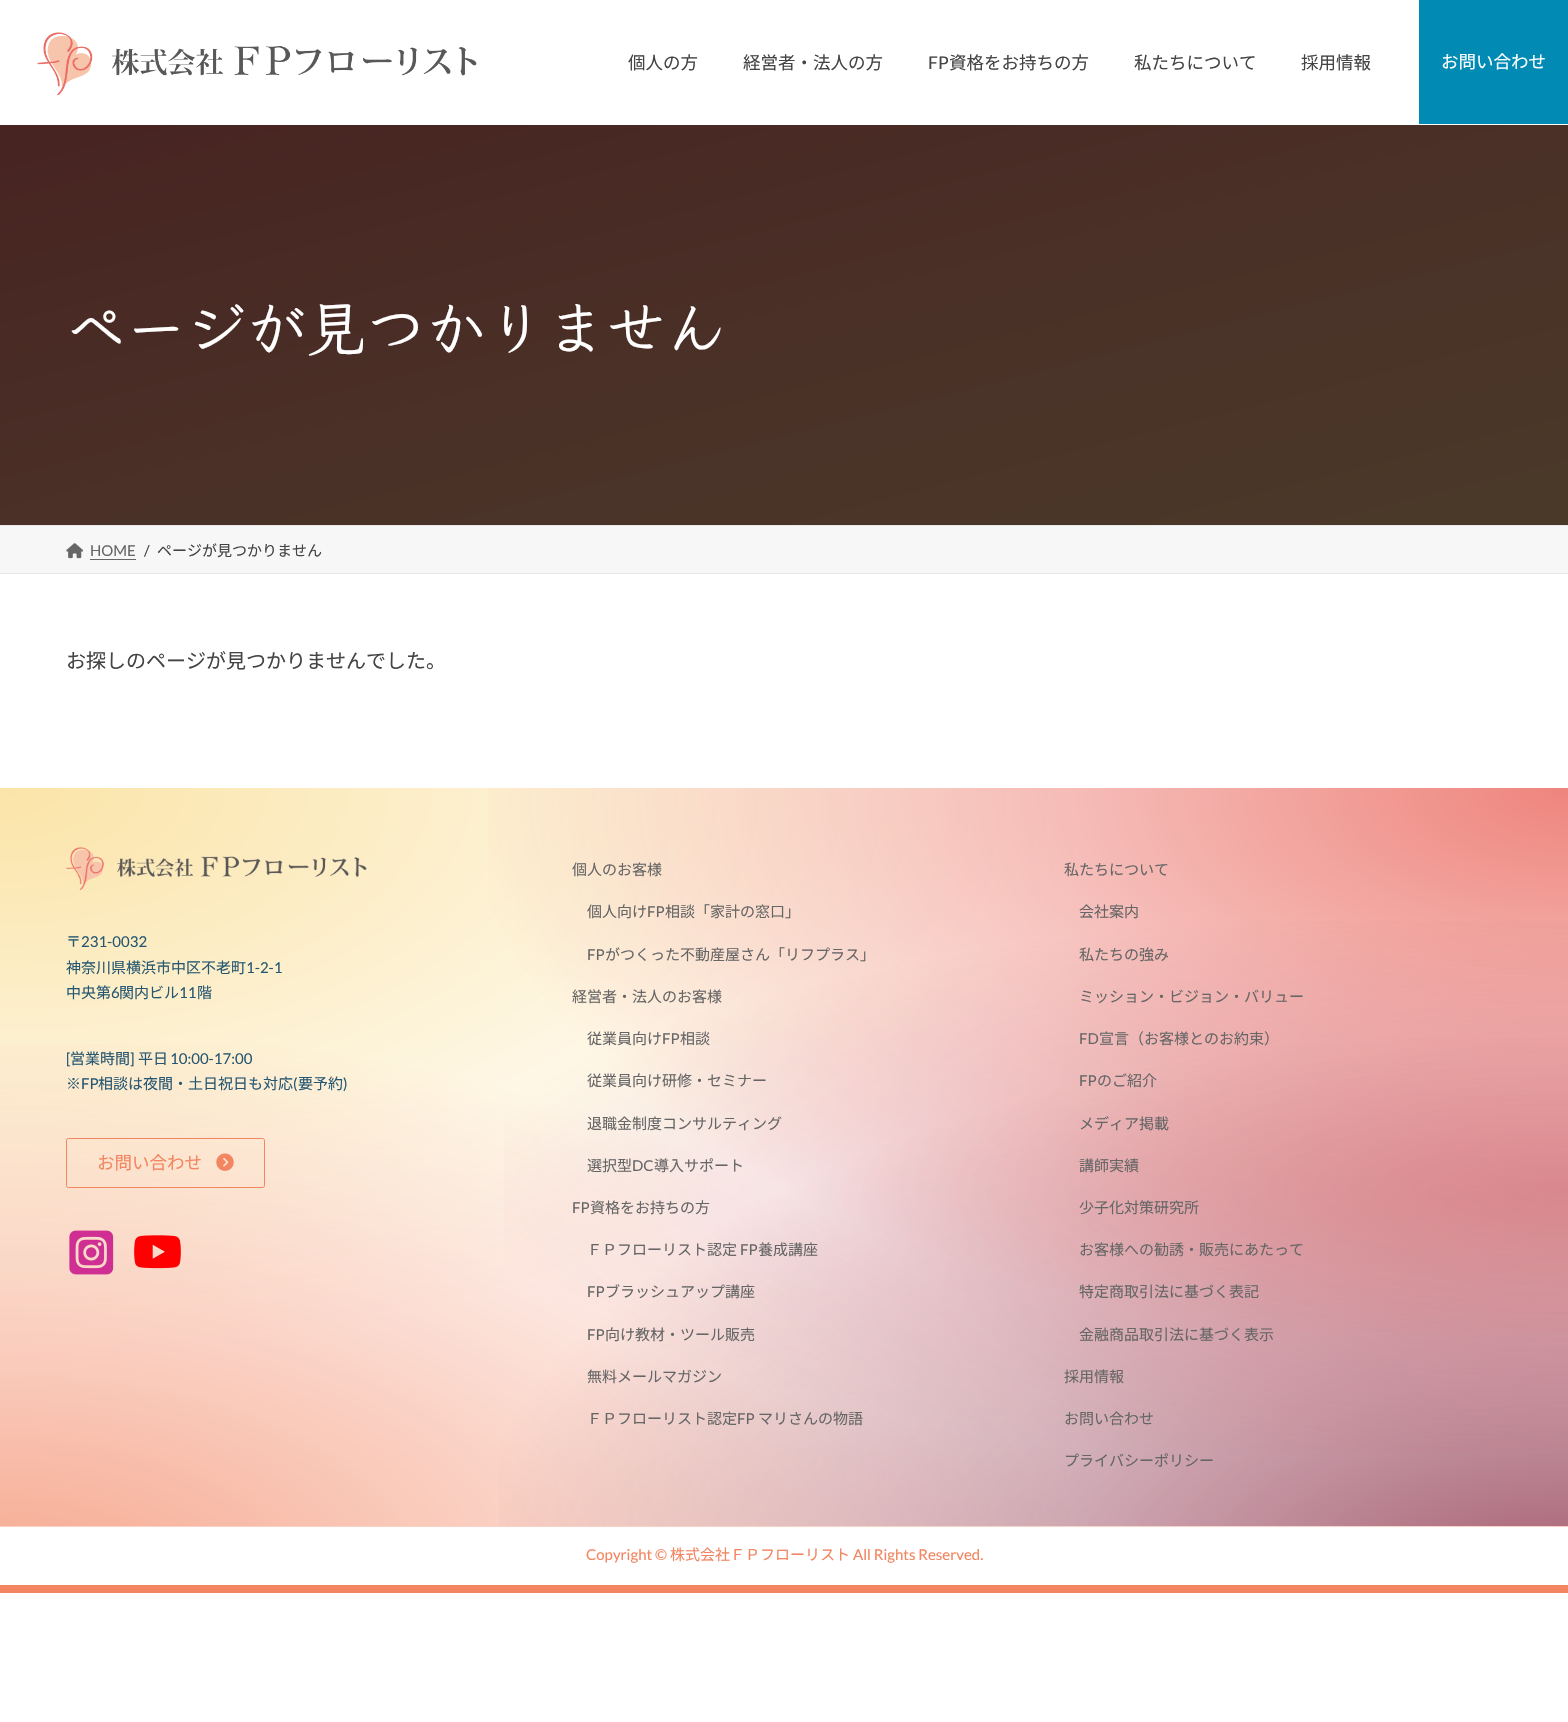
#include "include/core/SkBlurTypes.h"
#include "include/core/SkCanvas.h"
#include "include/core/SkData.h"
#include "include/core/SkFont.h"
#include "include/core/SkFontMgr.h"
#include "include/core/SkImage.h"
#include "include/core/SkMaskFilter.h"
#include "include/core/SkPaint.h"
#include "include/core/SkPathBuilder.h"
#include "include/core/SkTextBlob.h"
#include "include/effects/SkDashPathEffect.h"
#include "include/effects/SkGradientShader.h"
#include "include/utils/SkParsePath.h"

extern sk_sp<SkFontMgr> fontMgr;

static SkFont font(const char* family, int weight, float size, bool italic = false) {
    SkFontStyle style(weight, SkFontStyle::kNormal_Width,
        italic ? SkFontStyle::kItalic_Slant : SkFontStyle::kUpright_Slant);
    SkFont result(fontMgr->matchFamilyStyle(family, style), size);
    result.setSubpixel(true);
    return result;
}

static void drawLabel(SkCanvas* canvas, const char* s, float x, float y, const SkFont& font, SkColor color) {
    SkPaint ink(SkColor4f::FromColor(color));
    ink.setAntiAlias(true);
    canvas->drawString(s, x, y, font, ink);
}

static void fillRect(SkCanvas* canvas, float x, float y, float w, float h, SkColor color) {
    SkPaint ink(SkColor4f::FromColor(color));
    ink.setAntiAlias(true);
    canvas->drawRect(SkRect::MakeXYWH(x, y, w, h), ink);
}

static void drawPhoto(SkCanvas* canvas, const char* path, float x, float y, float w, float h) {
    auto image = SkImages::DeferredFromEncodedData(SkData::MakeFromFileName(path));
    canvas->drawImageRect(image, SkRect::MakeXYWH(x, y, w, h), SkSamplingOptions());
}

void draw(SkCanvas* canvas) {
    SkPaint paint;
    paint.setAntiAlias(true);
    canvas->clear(0xFFFFFFFF);
    drawPhoto(canvas, "assets/img1.png", 37, 32, 440, 63);
    SkFont font1 = font("Noto Sans JP", 400, 17.5f);
    drawLabel(canvas, "個人の方", 628, 69, font1, 0xFF444444);
    drawLabel(canvas, "経営者・法人の方", 743, 69, font1, 0xFF444444);
    SkFont font2 = font("Lato", 400, 17.5f);
    drawLabel(canvas, "FP", 928, 69, font2, 0xFF444444);
    drawLabel(canvas, "資格をお持ちの方", 949, 69, font1, 0xFF444444);
    drawLabel(canvas, "私たちについて", 1134, 69, font1, 0xFF444444);
    drawLabel(canvas, "採用情報", 1301, 69, font1, 0xFF444444);
    fillRect(canvas, 1419, 0, 149, 124, 0xFF008AB4);
    drawLabel(canvas, "お問い合わせ", 1441, 68, font1, 0xFFFFFFFF);
    {
        const SkColor colors[] = {0xFF472321, 0xFF4A3027, 0xFF4A3929};
        const float stops[] = {0, 0.5f, 1};
        const SkPoint ends[] = {{689, -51}, {880, 701}};
        paint.setShader(SkGradientShader::MakeLinear(ends, colors, stops, 3, SkTileMode::kClamp));
        paint.setAlpha(255);
    }
    canvas->drawRect(SkRect::MakeXYWH(0, 125, 1568, 400), paint);
    SkFont font3 = font("Klee One", 600, 60);
    drawLabel(canvas, "ページが見つかりません", 66, 350, font3, 0xFFFFFFFF);
    fillRect(canvas, 0, 526, 1568, 47, 0xFFF7F7F7);
    fillRect(canvas, 0, 525, 1568, 1, 0xFFE8E8E8);
    fillRect(canvas, 0, 573, 1568, 1, 0xFFE8E8E8);
    drawPhoto(canvas, "assets/img2.png", 66, 543, 18, 16);
    SkFont font4 = font("Lato", 400, 15);
    drawLabel(canvas, "HOME", 90, 556, font4, 0xFF666666);
    fillRect(canvas, 90, 559, 46, 1, 0xFF666666);
    drawLabel(canvas, "/", 144, 556, font4, 0xFF444444);
    SkFont font5 = font("Noto Sans JP", 400, 15);
    drawLabel(canvas, "ページが見つかりません", 157, 556, font5, 0xFF444444);
    SkFont font6 = font("Noto Sans JP", 400, 20);
    drawLabel(canvas, "お探しのページが見つかりませんでした。", 66, 668, font6, 0xFF444444);
    {
        const SkColor colors[] = {0xFFFBE4A8, 0xFFFFFFFF};
        const float stops[] = {0, 0.5f};
        SkMatrix m = SkMatrix::Translate(0, 788).preScale(2219, 1138);
        paint.setShader(SkGradientShader::MakeRadial({0, 0}, 1, colors, stops, 2, SkTileMode::kClamp, 0, &m));
        paint.setAlpha(255);
    }
    canvas->drawRect(SkRect::MakeXYWH(0, 788, 1073, 551), paint);
    {
        const SkColor colors[] = {0xFFF6A78D, 0x00F6A78D};
        const float stops[] = {0, 0.5f};
        SkMatrix m = SkMatrix::Translate(0, 1593).preScale(2219, 1138);
        paint.setShader(SkGradientShader::MakeRadial({0, 0}, 1, colors, stops, 2, SkTileMode::kClamp, 0, &m));
        paint.setAlpha(255);
    }
    canvas->drawRect(SkRect::MakeXYWH(0, 1044, 1070, 482), paint);
    {
        const SkColor colors[] = {0xFFA55D71, 0x00A55D71};
        const float stops[] = {0, 0.5f};
        SkMatrix m = SkMatrix::Translate(1569, 1593).preScale(2219, 1138);
        paint.setShader(SkGradientShader::MakeRadial({0, 0}, 1, colors, stops, 2, SkTileMode::kClamp, 0, &m));
        paint.setAlpha(255);
    }
    canvas->drawRect(SkRect::MakeXYWH(499, 1037, 1069, 489), paint);
    {
        const SkColor colors[] = {0xFFEE857D, 0x00EE857D};
        const float stops[] = {0, 0.5f};
        SkMatrix m = SkMatrix::Translate(1569, 788).preScale(2219, 1138);
        paint.setShader(SkGradientShader::MakeRadial({0, 0}, 1, colors, stops, 2, SkTileMode::kClamp, 0, &m));
        paint.setAlpha(255);
    }
    canvas->drawRect(SkRect::MakeXYWH(488, 788, 1080, 544), paint);
    {
        const SkColor colors[] = {0x99CE656E, 0x00CE656E};
        const float stops[] = {0, 0.5f};
        SkMatrix m = SkMatrix::Translate(1569, 1190).preScale(2219, 569);
        paint.setShader(SkGradientShader::MakeRadial({0, 0}, 1, colors, stops, 2, SkTileMode::kClamp, 0, &m));
        paint.setAlpha(255);
    }
    canvas->drawRect(SkRect::MakeXYWH(504, 921, 1064, 530), paint);
    drawPhoto(canvas, "assets/img3.png", 66, 847, 301, 43);
    drawLabel(canvas, "〒", 66, 947, font5, 0xFF265772);
    drawLabel(canvas, "231-0032", 81, 947, font4, 0xFF265772);
    drawLabel(canvas, "神奈川県横浜市中区不老町", 66, 973, font5, 0xFF265772);
    drawLabel(canvas, "1-2-1", 246, 973, font4, 0xFF265772);
    drawLabel(canvas, "中央第", 66, 998, font5, 0xFF265772);
    drawLabel(canvas, "6", 111, 998, font4, 0xFF265772);
    drawLabel(canvas, "関内ビル", 119, 998, font5, 0xFF265772);
    drawLabel(canvas, "11", 179, 998, font4, 0xFF265772);
    drawLabel(canvas, "階", 197, 998, font5, 0xFF265772);
    drawLabel(canvas, "[", 66, 1064, font4, 0xFF265772);
    drawLabel(canvas, "営業時間", 70, 1064, font5, 0xFF265772);
    drawLabel(canvas, "]", 130, 1064, font4, 0xFF265772);
    drawLabel(canvas, "平日", 138, 1064, font5, 0xFF265772);
    drawLabel(canvas, "10:00-17:00", 170, 1064, font4, 0xFF265772);
    drawLabel(canvas, "※", 66, 1089, font5, 0xFF265772);
    drawLabel(canvas, "FP", 81, 1089, font4, 0xFF265772);
    drawLabel(canvas, "相談は夜間・土日祝日も対応", 98, 1089, font5, 0xFF265772);
    drawLabel(canvas, "(", 293, 1089, font4, 0xFF265772);
    drawLabel(canvas, "要予約", 298, 1089, font5, 0xFF265772);
    drawLabel(canvas, ")", 343, 1089, font4, 0xFF265772);
    paint.setStroke(true);
    paint.setStrokeWidth(1);
    paint.setShader(nullptr);
    paint.setColor(0xFFF38560);
    canvas->drawRoundRect(SkRect::MakeXYWH(66.5f, 1138.5f, 198, 49), 2, 2, paint);
    drawLabel(canvas, "お問い合わせ", 97, 1169, font1, 0xFFF38560);
    drawPhoto(canvas, "assets/img4.png", 216, 1153, 18, 18);
    drawPhoto(canvas, "assets/img5.png", 69, 1230, 45, 45);
    drawPhoto(canvas, "assets/img6.png", 134, 1235, 47, 34);
    drawLabel(canvas, "個人のお客様", 572, 875, font5, 0xFF666666);
    drawLabel(canvas, "個人向け", 587, 917, font5, 0xFF666666);
    drawLabel(canvas, "FP", 647, 917, font4, 0xFF666666);
    drawLabel(canvas, "相談「家計の窓口」", 665, 917, font5, 0xFF666666);
    drawLabel(canvas, "FP", 587, 960, font4, 0xFF666666);
    drawLabel(canvas, "がつくった不動産屋さん「リフプラス」", 605, 960, font5, 0xFF666666);
    drawLabel(canvas, "経営者・法人のお客様", 572, 1002, font5, 0xFF666666);
    drawLabel(canvas, "従業員向け", 587, 1044, font5, 0xFF666666);
    drawLabel(canvas, "FP", 662, 1044, font4, 0xFF666666);
    drawLabel(canvas, "相談", 680, 1044, font5, 0xFF666666);
    drawLabel(canvas, "従業員向け研修・セミナー", 587, 1086, font5, 0xFF666666);
    drawLabel(canvas, "退職金制度コンサルティング", 587, 1129, font5, 0xFF666666);
    drawLabel(canvas, "選択型", 587, 1171, font5, 0xFF666666);
    drawLabel(canvas, "DC", 632, 1171, font4, 0xFF666666);
    drawLabel(canvas, "導入サポート", 654, 1171, font5, 0xFF666666);
    drawLabel(canvas, "FP", 572, 1213, font4, 0xFF666666);
    drawLabel(canvas, "資格をお持ちの方", 590, 1213, font5, 0xFF666666);
    drawLabel(canvas, "ＦＰフローリスト認定", 587, 1255, font5, 0xFF666666);
    drawLabel(canvas, "FP", 740, 1255, font4, 0xFF666666);
    drawLabel(canvas, "養成講座", 758, 1255, font5, 0xFF666666);
    drawLabel(canvas, "FP", 587, 1297, font4, 0xFF666666);
    drawLabel(canvas, "ブラッシュアップ講座", 605, 1297, font5, 0xFF666666);
    drawLabel(canvas, "FP", 587, 1340, font4, 0xFF666666);
    drawLabel(canvas, "向け教材・ツール販売", 605, 1340, font5, 0xFF666666);
    drawLabel(canvas, "無料メールマガジン", 587, 1382, font5, 0xFF666666);
    drawLabel(canvas, "ＦＰフローリスト認定", 587, 1424, font5, 0xFF666666);
    drawLabel(canvas, "FP", 737, 1424, font4, 0xFF666666);
    drawLabel(canvas, "マリさんの物語", 758, 1424, font5, 0xFF666666);
    drawLabel(canvas, "私たちについて", 1064, 875, font5, 0xFF666666);
    drawLabel(canvas, "会社案内", 1079, 917, font5, 0xFF666666);
    drawLabel(canvas, "私たちの強み", 1079, 960, font5, 0xFF666666);
    drawLabel(canvas, "ミッション・ビジョン・バリュー", 1079, 1002, font5, 0xFF666666);
    drawLabel(canvas, "FD", 1079, 1044, font4, 0xFF666666);
    drawLabel(canvas, "宣言（お客様とのお約束）", 1099, 1044, font5, 0xFF666666);
    drawLabel(canvas, "FP", 1079, 1086, font4, 0xFF666666);
    drawLabel(canvas, "のご紹介", 1097, 1086, font5, 0xFF666666);
    drawLabel(canvas, "メディア掲載", 1079, 1129, font5, 0xFF666666);
    drawLabel(canvas, "講師実績", 1079, 1171, font5, 0xFF666666);
    drawLabel(canvas, "少子化対策研究所", 1079, 1213, font5, 0xFF666666);
    drawLabel(canvas, "お客様への勧誘・販売にあたって", 1079, 1255, font5, 0xFF666666);
    drawLabel(canvas, "特定商取引法に基づく表記", 1079, 1297, font5, 0xFF666666);
    drawLabel(canvas, "金融商品取引法に基づく表示", 1079, 1340, font5, 0xFF666666);
    drawLabel(canvas, "採用情報", 1064, 1382, font5, 0xFF666666);
    drawLabel(canvas, "お問い合わせ", 1064, 1424, font5, 0xFF666666);
    drawLabel(canvas, "プライバシーポリシー", 1064, 1466, font5, 0xFF666666);
    fillRect(canvas, 0, 1526, 1568, 1, 0xFFF9D2C5);
    fillRect(canvas, 0, 1585, 1568, 8, 0xFFF38560);
    drawLabel(canvas, "Copyright ©", 586, 1560, font4, 0xFFF38560);
    drawLabel(canvas, "株式会社ＦＰフローリスト", 670, 1560, font5, 0xFFF38560);
    drawLabel(canvas, "All Rights Reserved.", 853, 1560, font4, 0xFFF38560);
}
